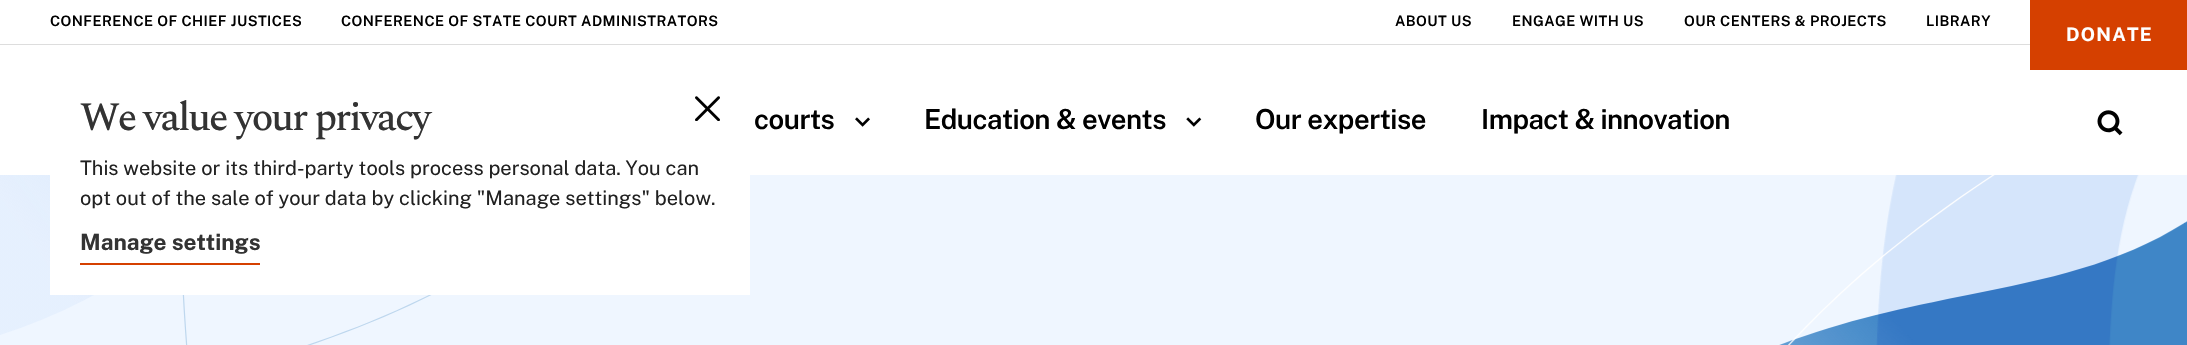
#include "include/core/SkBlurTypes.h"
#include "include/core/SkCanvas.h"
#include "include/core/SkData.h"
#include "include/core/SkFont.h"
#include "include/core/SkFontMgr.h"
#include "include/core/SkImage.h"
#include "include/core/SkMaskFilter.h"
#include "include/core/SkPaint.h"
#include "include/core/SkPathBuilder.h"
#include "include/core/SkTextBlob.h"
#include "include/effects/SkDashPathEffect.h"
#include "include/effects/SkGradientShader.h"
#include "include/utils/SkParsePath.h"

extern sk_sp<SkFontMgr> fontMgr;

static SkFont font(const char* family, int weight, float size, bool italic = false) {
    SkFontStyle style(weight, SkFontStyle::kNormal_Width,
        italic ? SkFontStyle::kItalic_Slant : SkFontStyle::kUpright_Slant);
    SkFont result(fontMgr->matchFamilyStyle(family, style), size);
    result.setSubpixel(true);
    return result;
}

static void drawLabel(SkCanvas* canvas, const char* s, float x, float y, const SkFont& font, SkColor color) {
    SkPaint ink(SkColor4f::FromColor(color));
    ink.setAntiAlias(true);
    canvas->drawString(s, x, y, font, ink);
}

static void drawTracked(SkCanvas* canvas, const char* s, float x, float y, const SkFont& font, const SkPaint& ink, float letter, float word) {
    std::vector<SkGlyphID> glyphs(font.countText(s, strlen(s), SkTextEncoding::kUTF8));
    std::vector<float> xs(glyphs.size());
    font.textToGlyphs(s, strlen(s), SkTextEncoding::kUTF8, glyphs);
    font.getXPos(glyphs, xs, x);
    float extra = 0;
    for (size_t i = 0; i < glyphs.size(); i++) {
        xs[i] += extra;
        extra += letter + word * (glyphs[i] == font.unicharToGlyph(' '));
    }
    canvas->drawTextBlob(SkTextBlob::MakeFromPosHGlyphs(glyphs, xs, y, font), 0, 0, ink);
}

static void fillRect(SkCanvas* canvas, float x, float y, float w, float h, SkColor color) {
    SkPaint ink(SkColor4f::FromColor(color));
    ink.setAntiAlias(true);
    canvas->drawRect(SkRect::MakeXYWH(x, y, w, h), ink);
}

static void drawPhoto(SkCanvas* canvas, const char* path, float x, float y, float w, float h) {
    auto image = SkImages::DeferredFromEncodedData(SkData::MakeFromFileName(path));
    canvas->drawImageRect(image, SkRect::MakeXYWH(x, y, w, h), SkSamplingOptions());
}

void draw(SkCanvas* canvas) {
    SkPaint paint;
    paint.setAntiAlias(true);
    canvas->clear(0xFFFFFFFF);
    fillRect(canvas, 0, 44, 2030, 1, 0xFFDDDDDD);
    SkFont font1 = font("Public Sans", 100, 14.4f);
    paint.setColor(0xFF000000);
    drawTracked(canvas, "CONFERENCE OF CHIEF JUSTICES", 50, 26, font1, paint, 0.45f, 0);
    drawTracked(canvas, "CONFERENCE OF STATE COURT ADMINISTRATORS", 341, 26, font1, paint, 0.45f, 0);
    drawTracked(canvas, "ABOUT US", 1395, 26, font1, paint, 0.45f, 0);
    drawTracked(canvas, "ENGAGE WITH US", 1512, 26, font1, paint, 0.45f, 0);
    drawTracked(canvas, "OUR CENTERS & PROJECTS", 1684, 26, font1, paint, 0.45f, 0);
    drawTracked(canvas, "LIBRARY", 1926, 26, font1, paint, 0.45f, 0);
    fillRect(canvas, 2030, 0, 157, 70, 0xFFD54000);
    SkFont font2 = font("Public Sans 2", 100, 18.75f);
    paint.setColor(0xFFFFFFFF);
    drawTracked(canvas, "DONATE", 2066, 41, font2, paint, 1.25f, 0);
    SkFont font3 = font("Public Sans", 100, 27.5f);
    paint.setColor(0xFF000000);
    drawTracked(canvas, "courts", 754, 129, font3, paint, -0.5f, 0);
    drawPhoto(canvas, "assets/img1.png", 855, 117, 15, 10);
    drawTracked(canvas, "Education & events", 924, 129, font3, paint, -0.5f, 0);
    drawPhoto(canvas, "assets/img2.png", 1186, 117, 16, 10);
    drawTracked(canvas, "Our expertise", 1255, 129, font3, paint, -0.5f, 0);
    drawTracked(canvas, "Impact & innovation", 1481, 129, font3, paint, -0.5f, 0);
    drawPhoto(canvas, "assets/img3.png", 2097, 110, 26, 26);
    fillRect(canvas, 0, 175, 2187, 170, 0xFFEFF6FF);
    drawPhoto(canvas, "assets/img4.png", 0, 175, 432, 170);
    drawPhoto(canvas, "assets/img5.png", 1779, 175, 408, 170);
    fillRect(canvas, 50, 175, 700, 120, 0xFFFFFFFF);
    drawPhoto(canvas, "assets/img6.png", 695, 96, 25, 25);
    SkFont font4 = font("Spectral", 500, 40);
    paint.setColor(0xFF333333);
    drawTracked(canvas, "We value your privacy", 80, 130, font4, paint, -2, 0);
    SkFont font5 = font("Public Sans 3", 100, 20);
    drawLabel(canvas, "This website or its third-party tools process personal data. You can", 80, 175, font5, 0xFF212121);
    drawLabel(canvas, "opt out of the sale of your data by clicking \"Manage settings\" below.", 80, 205, font5, 0xFF212121);
    fillRect(canvas, 80, 263, 180, 2, 0xFFD54000);
    SkFont font6 = font("Public Sans 2", 100, 22.5f);
    drawLabel(canvas, "Manage settings", 80, 250, font6, 0xFF333333);
}
